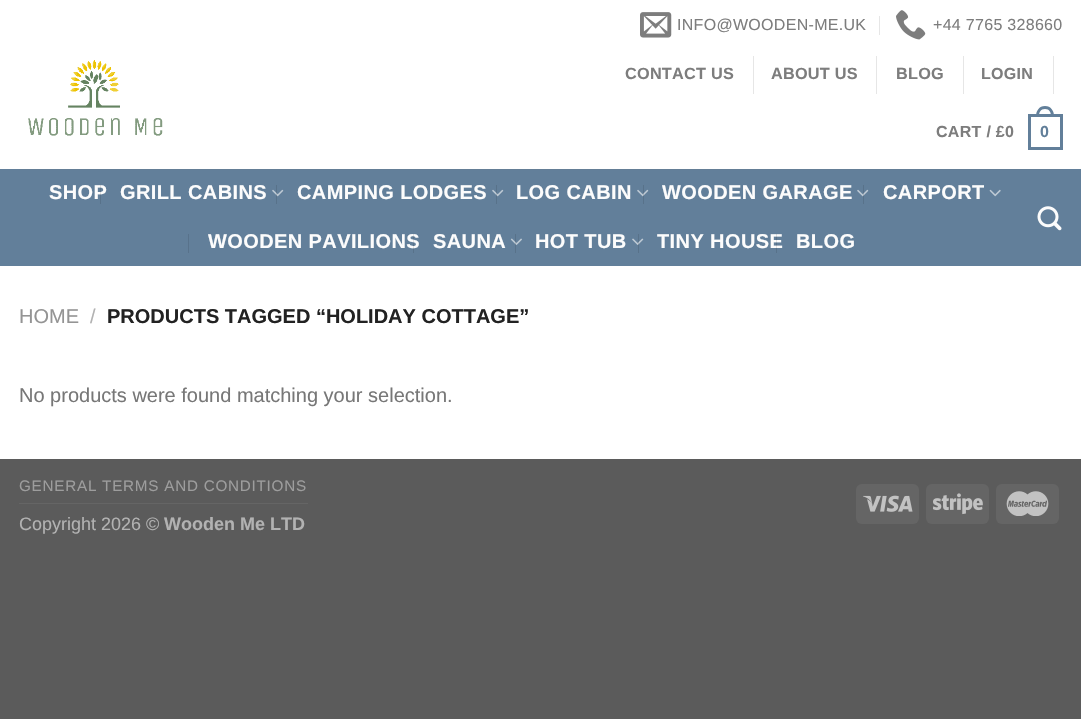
#include "include/core/SkBlurTypes.h"
#include "include/core/SkCanvas.h"
#include "include/core/SkData.h"
#include "include/core/SkFont.h"
#include "include/core/SkFontMgr.h"
#include "include/core/SkImage.h"
#include "include/core/SkMaskFilter.h"
#include "include/core/SkPaint.h"
#include "include/core/SkPathBuilder.h"
#include "include/core/SkTextBlob.h"
#include "include/effects/SkDashPathEffect.h"
#include "include/effects/SkGradientShader.h"
#include "include/utils/SkParsePath.h"

extern sk_sp<SkFontMgr> fontMgr;

static SkFont font(const char* family, int weight, float size, bool italic = false) {
    SkFontStyle style(weight, SkFontStyle::kNormal_Width,
        italic ? SkFontStyle::kItalic_Slant : SkFontStyle::kUpright_Slant);
    SkFont result(fontMgr->matchFamilyStyle(family, style), size);
    result.setSubpixel(true);
    return result;
}

static void drawLabel(SkCanvas* canvas, const char* s, float x, float y, const SkFont& font, SkColor color) {
    SkPaint ink(SkColor4f::FromColor(color));
    ink.setAntiAlias(true);
    canvas->drawString(s, x, y, font, ink);
}

static void drawTracked(SkCanvas* canvas, const char* s, float x, float y, const SkFont& font, const SkPaint& ink, float letter, float word) {
    std::vector<SkGlyphID> glyphs(font.countText(s, strlen(s), SkTextEncoding::kUTF8));
    std::vector<float> xs(glyphs.size());
    font.textToGlyphs(s, strlen(s), SkTextEncoding::kUTF8, glyphs);
    font.getXPos(glyphs, xs, x);
    float extra = 0;
    for (size_t i = 0; i < glyphs.size(); i++) {
        xs[i] += extra;
        extra += letter + word * (glyphs[i] == font.unicharToGlyph(' '));
    }
    canvas->drawTextBlob(SkTextBlob::MakeFromPosHGlyphs(glyphs, xs, y, font), 0, 0, ink);
}

static void fillRect(SkCanvas* canvas, float x, float y, float w, float h, SkColor color) {
    SkPaint ink(SkColor4f::FromColor(color));
    ink.setAntiAlias(true);
    canvas->drawRect(SkRect::MakeXYWH(x, y, w, h), ink);
}

static void fillRRect(SkCanvas* canvas, float x, float y, float w, float h, float radius, SkColor color) {
    SkPaint ink(SkColor4f::FromColor(color));
    ink.setAntiAlias(true);
    canvas->drawRoundRect(SkRect::MakeXYWH(x, y, w, h), radius, radius, ink);
}

static void drawPhoto(SkCanvas* canvas, const char* path, float x, float y, float w, float h) {
    auto image = SkImages::DeferredFromEncodedData(SkData::MakeFromFileName(path));
    canvas->drawImageRect(image, SkRect::MakeXYWH(x, y, w, h), SkSamplingOptions());
}

static SkPath parsePath(const char* data, bool evenOdd = false) {
    SkPath result = *SkParsePath::FromSVGString(data);
    if (evenOdd) result.setFillType(SkPathFillType::kEvenOdd);
    return result;
}

void draw(SkCanvas* canvas) {
    SkPaint paint;
    paint.setAntiAlias(true);
    canvas->clear(0xFF5B5B5B);
    fillRect(canvas, 0, 0, 1081, 459, 0xFFFFFFFF);
    drawPhoto(canvas, "assets/img1.png", 640, 12, 32, 26);
    SkFont font1 = font("Liberation Sans", 400, 16);
    paint.setColor(0xFF7D7D7D);
    drawTracked(canvas, "INFO@WOODEN-ME.UK", 677, 30, font1, paint, 0.3f, 0);
    fillRect(canvas, 879, 16, 1, 19, 0xFFE6E6E6);
    drawPhoto(canvas, "assets/img2.png", 896, 10, 30, 30);
    drawTracked(canvas, "+44 7765 328660", 933, 30, font1, paint, 0.3f, 0);
    drawPhoto(canvas, "assets/img3.png", 28, 60, 135, 76);
    SkFont font2 = font("Liberation Sans", 700, 16.25f);
    drawTracked(canvas, "CONTACT US", 625, 79, font2, paint, 0.25f, 0);
    fillRect(canvas, 753, 56, 1, 38, 0xFFE6E6E6);
    drawTracked(canvas, "ABOUT US", 771, 79, font2, paint, 0.25f, 0);
    fillRect(canvas, 876, 56, 1, 38, 0xFFE6E6E6);
    drawTracked(canvas, "BLOG", 896, 79, font2, paint, 0.25f, 0);
    fillRect(canvas, 963, 56, 1, 38, 0xFFE6E6E6);
    SkFont font3 = font("Liberation Sans", 700, 16);
    drawTracked(canvas, "LOGIN", 981, 79, font3, paint, 0.3f, 0);
    fillRect(canvas, 1053, 56, 1, 38, 0xFFE6E6E6);
    drawTracked(canvas, "CART / £0", 936, 137, font3, paint, 0.3f, 0);
    paint.setStroke(true);
    paint.setStrokeWidth(3);
    paint.setColor(0xFF627F9A);
    canvas->drawRect(SkRect::MakeXYWH(1029.5f, 115.5f, 32, 33), paint);
    paint.setStroke(false);
    canvas->drawPath(parsePath("M1045 106C1051 106 1054 111 1054 116H1036C1036 111 1039 106 1045 106ZM1045 109C1049.5 109 1051 112.5 1051 116H1039C1039 112.5 1040.5 109 1045 109Z", true), paint);
    drawTracked(canvas, "0", 1040, 137, font3, paint, 0.3f, 0);
    fillRect(canvas, 0, 169, 1081, 97, 0xFF627F9A);
    fillRect(canvas, 19, 169, 1044, 1, 0xFF647E96);
    SkFont font4 = font("Liberation Sans", 700, 20);
    paint.setColor(0xFFFCFCFC);
    drawTracked(canvas, "SHOP", 49, 199, font4, paint, 0.4f, 0);
    fillRect(canvas, 100, 185, 1, 19, 0x1A000000);
    drawTracked(canvas, "GRILL CABINS", 120, 199, font4, paint, 0.4f, 0);
    drawPhoto(canvas, "assets/img4.png", 272, 189, 12, 8);
    fillRect(canvas, 276, 185, 1, 19, 0x1A000000);
    drawTracked(canvas, "CAMPING LODGES", 297, 199, font4, paint, 0.4f, 0);
    drawPhoto(canvas, "assets/img4.png", 492, 189, 12, 8);
    fillRect(canvas, 496, 185, 1, 19, 0x1A000000);
    drawTracked(canvas, "LOG CABIN", 516, 199, font4, paint, 0.4f, 0);
    drawPhoto(canvas, "assets/img4.png", 637, 189, 12, 8);
    fillRect(canvas, 643, 185, 1, 19, 0x1A000000);
    drawTracked(canvas, "WOODEN GARAGE", 662, 199, font4, paint, 0.4f, 0);
    drawPhoto(canvas, "assets/img4.png", 857, 189, 12, 8);
    fillRect(canvas, 863, 185, 1, 19, 0x1A000000);
    drawTracked(canvas, "CARPORT", 883, 199, font4, paint, 0.4f, 0);
    drawPhoto(canvas, "assets/img5.png", 989, 189, 12, 8);
    fillRect(canvas, 188, 234, 1, 19, 0xFF58728B);
    drawTracked(canvas, "WOODEN PAVILIONS", 208, 248, font4, paint, 0.4f, 0);
    fillRect(canvas, 413, 234, 1, 19, 0x1A000000);
    drawTracked(canvas, "SAUNA", 433, 248, font4, paint, 0.4f, 0);
    drawPhoto(canvas, "assets/img6.png", 510, 238, 12, 7);
    fillRect(canvas, 515, 234, 1, 19, 0x1A000000);
    drawTracked(canvas, "HOT TUB", 535, 248, font4, paint, 0.4f, 0);
    drawPhoto(canvas, "assets/img7.png", 632, 238, 12, 7);
    fillRect(canvas, 638, 234, 1, 19, 0x1A000000);
    drawTracked(canvas, "TINY HOUSE", 657, 248, font4, paint, 0.4f, 0);
    fillRect(canvas, 776, 234, 1, 19, 0x1A000000);
    drawTracked(canvas, "BLOG", 796, 248, font4, paint, 0.4f, 0);
    drawPhoto(canvas, "assets/img8.png", 1037, 206, 25, 25);
    SkFont font5 = font("Liberation Sans", 400, 20);
    drawLabel(canvas, "HOME", 19, 323, font5, 0xFF949494);
    drawLabel(canvas, "/", 90, 323, font5, 0xFFB2B2B2);
    drawLabel(canvas, "PRODUCTS TAGGED “HOLIDAY COTTAGE”", 107, 323, font4, 0xFF222222);
    drawLabel(canvas, "No products were found matching your selection.", 19, 402, font5, 0xFF777777);
    fillRect(canvas, 19, 503, 289, 1, 0xFF656565);
    SkFont font6 = font("Liberation Sans", 400, 15.25f);
    paint.setColor(0xFF9D9D9D);
    drawTracked(canvas, "GENERAL TERMS AND CONDITIONS", 19, 491, font6, paint, 0.75f, 0);
    SkFont font7 = font("Liberation Sans", 400, 18);
    drawLabel(canvas, "Copyright 2026 ©", 19, 530, font7, 0xFFB2B2B2);
    SkFont font8 = font("Liberation Sans", 700, 18);
    drawLabel(canvas, "Wooden Me LTD", 164, 530, font8, 0xFFB2B2B2);
    fillRRect(canvas, 856, 484, 63, 40, 6, 0xFF656565);
    drawPhoto(canvas, "assets/img9.png", 863, 495, 50, 17);
    fillRRect(canvas, 926, 484, 63, 40, 6, 0xFF656565);
    drawPhoto(canvas, "assets/img10.png", 933, 493, 50, 22);
    fillRRect(canvas, 996, 484, 63, 40, 6, 0xFF656565);
    drawPhoto(canvas, "assets/img11.png", 1006, 491, 43, 25);
}
